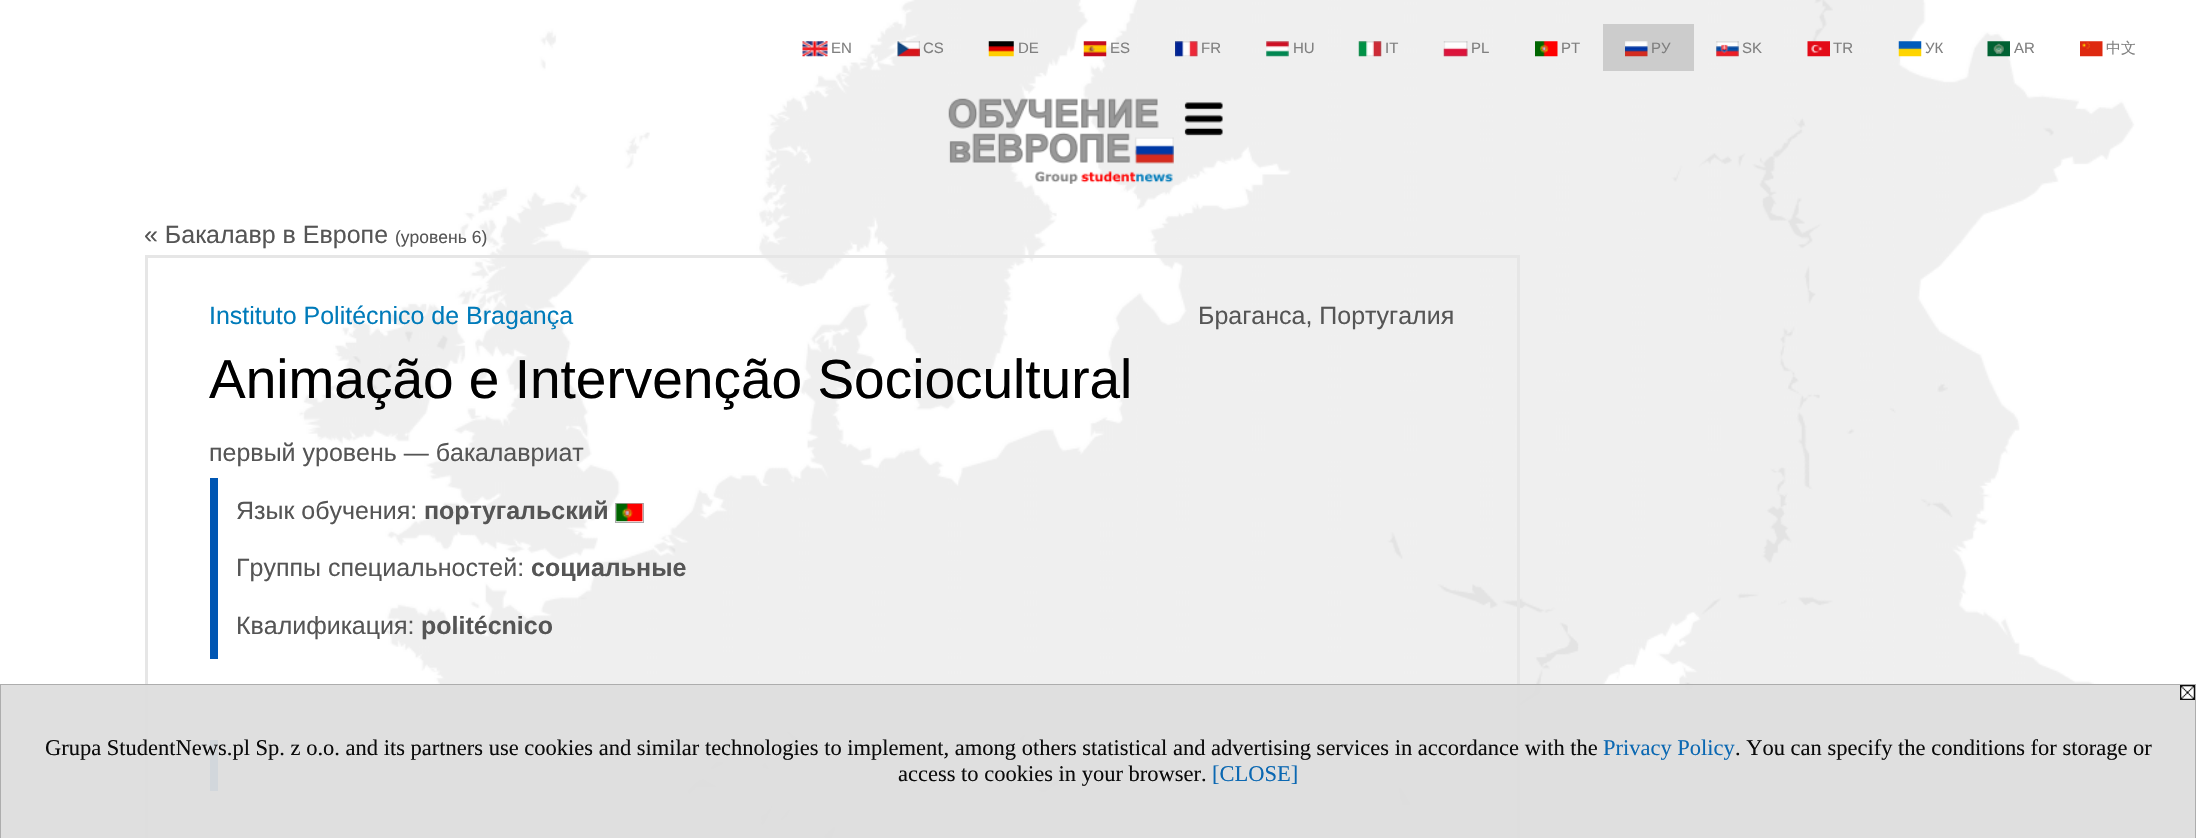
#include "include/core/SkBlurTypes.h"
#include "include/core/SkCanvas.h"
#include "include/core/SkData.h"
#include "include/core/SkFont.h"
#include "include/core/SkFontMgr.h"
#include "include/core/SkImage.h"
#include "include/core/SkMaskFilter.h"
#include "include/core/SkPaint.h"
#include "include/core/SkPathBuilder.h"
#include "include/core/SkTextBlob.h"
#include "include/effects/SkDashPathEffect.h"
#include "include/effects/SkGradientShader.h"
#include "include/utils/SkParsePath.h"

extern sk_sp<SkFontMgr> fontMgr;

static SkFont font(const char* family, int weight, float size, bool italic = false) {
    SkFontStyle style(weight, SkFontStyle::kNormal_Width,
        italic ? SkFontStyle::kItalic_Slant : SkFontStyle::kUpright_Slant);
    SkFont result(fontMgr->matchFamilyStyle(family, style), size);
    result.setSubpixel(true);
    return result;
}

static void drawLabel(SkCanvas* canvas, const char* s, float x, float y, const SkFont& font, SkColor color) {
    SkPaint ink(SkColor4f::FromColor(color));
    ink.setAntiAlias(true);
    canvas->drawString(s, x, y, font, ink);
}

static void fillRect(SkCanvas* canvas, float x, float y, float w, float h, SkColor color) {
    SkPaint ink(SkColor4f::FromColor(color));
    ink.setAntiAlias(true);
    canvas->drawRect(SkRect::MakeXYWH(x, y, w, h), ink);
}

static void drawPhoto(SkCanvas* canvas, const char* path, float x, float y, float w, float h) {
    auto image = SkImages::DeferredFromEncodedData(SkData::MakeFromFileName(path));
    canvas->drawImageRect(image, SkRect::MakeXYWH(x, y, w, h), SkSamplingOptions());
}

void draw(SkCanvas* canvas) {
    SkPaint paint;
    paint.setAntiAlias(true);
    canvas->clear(0xFFFFFFFF);
    drawPhoto(canvas, "assets/img1.png", 155, 0, 1986, 838);
    drawPhoto(canvas, "assets/img2.png", 802, 41, 26, 16);
    SkFont font1 = font("Liberation Sans", 400, 15);
    drawLabel(canvas, "EN", 831, 53, font1, 0xFF808080);
    drawPhoto(canvas, "assets/img3.png", 897, 41, 23, 16);
    drawLabel(canvas, "CS", 923, 53, font1, 0xFF808080);
    drawPhoto(canvas, "assets/img4.png", 988, 41, 26, 16);
    drawLabel(canvas, "DE", 1018, 53, font1, 0xFF808080);
    drawPhoto(canvas, "assets/img5.png", 1083, 41, 24, 16);
    drawLabel(canvas, "ES", 1110, 53, font1, 0xFF808080);
    drawPhoto(canvas, "assets/img6.png", 1175, 41, 23, 16);
    drawLabel(canvas, "FR", 1201, 53, font1, 0xFF808080);
    drawPhoto(canvas, "assets/img7.png", 1266, 41, 23, 16);
    drawLabel(canvas, "HU", 1293, 53, font1, 0xFF808080);
    drawPhoto(canvas, "assets/img8.png", 1358, 41, 24, 16);
    drawLabel(canvas, "IT", 1385, 53, font1, 0xFF808080);
    drawPhoto(canvas, "assets/img9.png", 1443, 41, 25, 16);
    drawLabel(canvas, "PL", 1471, 53, font1, 0xFF808080);
    drawPhoto(canvas, "assets/img10.png", 1535, 41, 23, 16);
    drawLabel(canvas, "PT", 1561, 53, font1, 0xFF808080);
    fillRect(canvas, 1603, 24, 91, 47, 0xFFCCCCCC);
    drawPhoto(canvas, "assets/img11.png", 1625, 41, 23, 16);
    drawLabel(canvas, "РУ", 1651, 53, font1, 0xFF808080);
    drawPhoto(canvas, "assets/img12.png", 1716, 41, 23, 16);
    drawLabel(canvas, "SK", 1742, 53, font1, 0xFF808080);
    drawPhoto(canvas, "assets/img13.png", 1807, 41, 23, 16);
    drawLabel(canvas, "TR", 1833, 53, font1, 0xFF808080);
    drawPhoto(canvas, "assets/img14.png", 1898, 41, 24, 16);
    drawLabel(canvas, "УК", 1925, 53, font1, 0xFF808080);
    drawPhoto(canvas, "assets/img15.png", 1987, 41, 23, 16);
    drawLabel(canvas, "AR", 2014, 53, font1, 0xFF808080);
    drawPhoto(canvas, "assets/img16.png", 2080, 41, 23, 16);
    SkFont font2 = font("WenQuanYi Zen Hei", 500, 15);
    drawLabel(canvas, "中文", 2106, 53, font2, 0xFF808080);
    drawPhoto(canvas, "assets/img17.png", 948, 98, 226, 86);
    drawPhoto(canvas, "assets/img18.png", 1184, 102, 39, 34);
    SkFont font3 = font("Liberation Sans", 400, 25);
    drawLabel(canvas, "« Бакалавр в Европе", 144, 243, font3, 0xFF555555);
    SkFont font4 = font("Liberation Sans", 400, 17.5f);
    drawLabel(canvas, "(уровень 6)", 395, 243, font4, 0xFF555555);
    paint.setStroke(true);
    paint.setStrokeWidth(3);
    paint.setColor(0xFFE6E6E6);
    canvas->drawRect(SkRect::MakeXYWH(146.5f, 256.5f, 1372, 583), paint);
    drawLabel(canvas, "Instituto Politécnico de Bragança", 209, 324, font3, 0xFF007BBA);
    drawLabel(canvas, "Браганса, Португалия", 1198, 324, font3, 0xFF555555);
    SkFont font5 = font("Liberation Sans", 400, 55);
    drawLabel(canvas, "Animação e Intervenção Sociocultural", 209, 398, font5, 0xFF000000);
    drawLabel(canvas, "первый уровень — бакалавриат", 209, 461, font3, 0xFF555555);
    fillRect(canvas, 210, 478, 8, 181, 0xFF0056B3);
    drawLabel(canvas, "Язык обучения:", 236, 519, font3, 0xFF555555);
    SkFont font6 = font("Liberation Sans", 700, 25);
    drawLabel(canvas, "португальский", 424, 519, font6, 0xFF555555);
    paint.setStrokeWidth(1);
    paint.setColor(0xFFAAAAAA);
    canvas->drawRect(SkRect::MakeXYWH(615.5f, 503.5f, 28, 19), paint);
    drawPhoto(canvas, "assets/img19.png", 616, 503, 27, 19);
    drawLabel(canvas, "Группы специальностей:", 236, 576, font3, 0xFF555555);
    drawLabel(canvas, "социальные", 531, 576, font6, 0xFF555555);
    drawLabel(canvas, "Квалификация:", 236, 634, font3, 0xFF555555);
    drawLabel(canvas, "politécnico", 421, 634, font6, 0xFF555555);
    fillRect(canvas, 210, 740, 8, 51, 0xFF0056B3);
    paint.setStroke(false);
    paint.setColor(0xF2DDDDDD);
    canvas->drawRect(SkRect::MakeXYWH(0.5f, 684.5f, 2195, 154), paint);
    paint.setStroke(true);
    paint.setColor(0xFFADADAD);
    canvas->drawRect(SkRect::MakeXYWH(0.5f, 684.5f, 2195, 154), paint);
    drawPhoto(canvas, "assets/img20.png", 2180, 685, 15, 15);
    SkFont font7 = font("Liberation Serif", 400, 22.5f);
    drawLabel(canvas, "Grupa StudentNews.pl Sp. z o.o. and its partners use cookies and similar technologies to implement, among others statistical and advertising services in accordance with the", 45, 755, font7, 0xFF0B0B0B);
    drawLabel(canvas, "Privacy Policy", 1603, 755, font7, 0xFF0B68B2);
    drawLabel(canvas, ". You can specify the conditions for storage or", 1735, 755, font7, 0xFF0B0B0B);
    drawLabel(canvas, "access to cookies in your browser.", 898, 781, font7, 0xFF0B0B0B);
    drawLabel(canvas, "[CLOSE]", 1212, 781, font7, 0xFF0B68B2);
}
